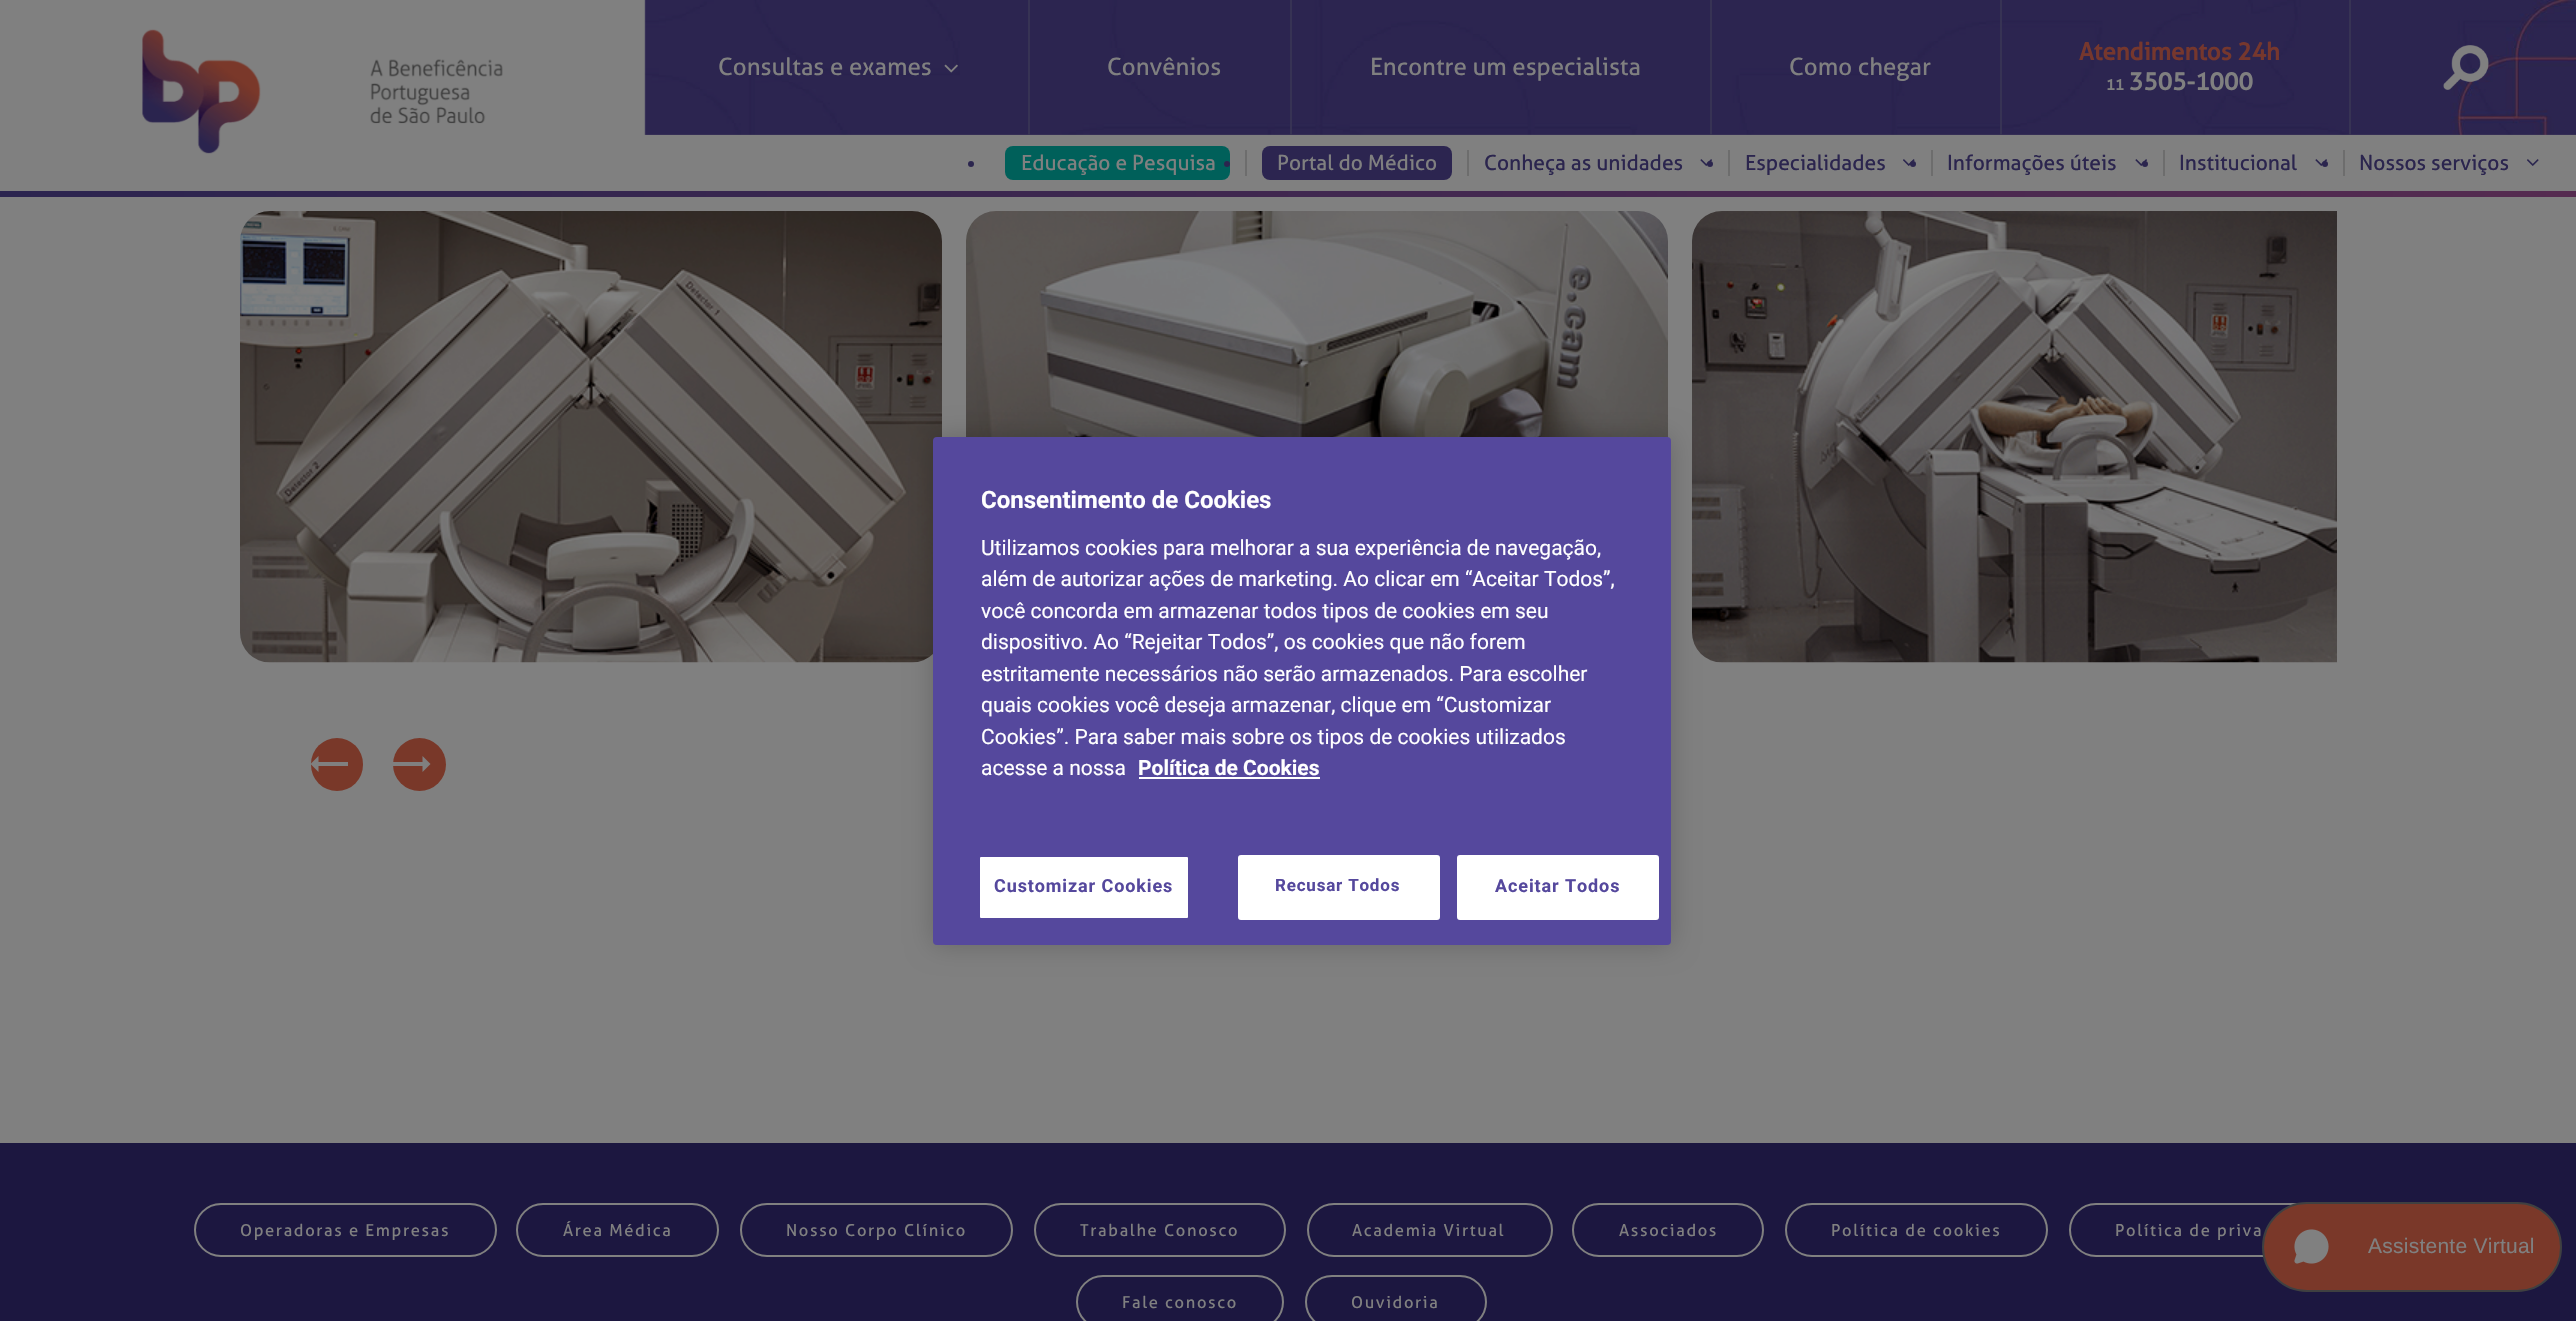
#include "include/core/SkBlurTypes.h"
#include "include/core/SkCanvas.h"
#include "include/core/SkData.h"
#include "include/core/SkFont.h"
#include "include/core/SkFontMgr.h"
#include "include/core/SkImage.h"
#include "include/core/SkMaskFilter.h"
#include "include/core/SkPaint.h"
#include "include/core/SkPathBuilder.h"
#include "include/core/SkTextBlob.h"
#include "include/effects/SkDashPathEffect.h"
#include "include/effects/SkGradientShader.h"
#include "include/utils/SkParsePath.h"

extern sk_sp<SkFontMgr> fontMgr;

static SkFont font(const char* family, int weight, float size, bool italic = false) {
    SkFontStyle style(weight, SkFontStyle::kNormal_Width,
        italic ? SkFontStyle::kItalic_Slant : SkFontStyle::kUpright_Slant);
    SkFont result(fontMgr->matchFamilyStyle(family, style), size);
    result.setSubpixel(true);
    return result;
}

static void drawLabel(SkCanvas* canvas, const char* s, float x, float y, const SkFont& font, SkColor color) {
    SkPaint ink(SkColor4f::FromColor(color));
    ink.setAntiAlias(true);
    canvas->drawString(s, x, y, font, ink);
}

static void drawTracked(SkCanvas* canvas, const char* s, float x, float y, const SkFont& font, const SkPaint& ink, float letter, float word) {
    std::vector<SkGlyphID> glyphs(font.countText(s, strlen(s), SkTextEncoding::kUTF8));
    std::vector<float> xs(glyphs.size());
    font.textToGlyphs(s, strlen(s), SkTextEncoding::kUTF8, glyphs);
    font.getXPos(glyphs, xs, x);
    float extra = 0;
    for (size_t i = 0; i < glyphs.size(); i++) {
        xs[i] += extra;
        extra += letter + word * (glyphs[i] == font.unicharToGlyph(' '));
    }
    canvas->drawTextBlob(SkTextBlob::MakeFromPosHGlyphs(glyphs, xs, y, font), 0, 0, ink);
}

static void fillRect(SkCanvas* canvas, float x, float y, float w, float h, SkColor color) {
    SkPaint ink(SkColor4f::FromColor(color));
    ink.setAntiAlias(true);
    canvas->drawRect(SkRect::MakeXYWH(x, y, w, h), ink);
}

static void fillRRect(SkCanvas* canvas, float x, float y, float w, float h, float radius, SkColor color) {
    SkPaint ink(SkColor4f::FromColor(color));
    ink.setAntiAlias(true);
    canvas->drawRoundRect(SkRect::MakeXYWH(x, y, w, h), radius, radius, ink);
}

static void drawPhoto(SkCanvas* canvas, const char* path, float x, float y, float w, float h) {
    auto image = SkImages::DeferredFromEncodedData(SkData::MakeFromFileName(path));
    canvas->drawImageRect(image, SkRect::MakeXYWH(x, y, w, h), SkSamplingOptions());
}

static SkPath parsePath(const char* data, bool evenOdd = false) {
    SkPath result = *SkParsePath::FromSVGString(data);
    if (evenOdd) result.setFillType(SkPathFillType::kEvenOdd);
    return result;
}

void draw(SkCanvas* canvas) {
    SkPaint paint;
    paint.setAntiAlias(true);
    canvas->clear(0xFF808080);
    drawPhoto(canvas, "assets/img1.png", 142, 29, 361, 125);
    drawPhoto(canvas, "assets/img2.png", 644, 0, 1932, 135);
    fillRect(canvas, 1028, 0, 2, 135, 0xFF373354);
    SkFont font1 = font("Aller", 400, 24);
    drawLabel(canvas, "Consultas e exames", 718, 75, font1, 0xFF808080);
    drawPhoto(canvas, "assets/img3.png", 944, 64, 14, 9);
    fillRect(canvas, 1290, 0, 2, 135, 0xFF373354);
    drawLabel(canvas, "Convênios", 1107, 75, font1, 0xFF808080);
    fillRect(canvas, 1710, 0, 2, 135, 0xFF373354);
    drawLabel(canvas, "Encontre um especialista", 1370, 75, font1, 0xFF808080);
    fillRect(canvas, 2000, 0, 2, 135, 0xFF373354);
    drawLabel(canvas, "Como chegar", 1789, 75, font1, 0xFF808080);
    fillRect(canvas, 2349, 0, 2, 135, 0xFF373354);
    SkFont font2 = font("Aller", 700, 24);
    drawLabel(canvas, "Atendimentos 24h", 2079, 60, font2, 0xFF76372D);
    SkFont font3 = font("Aller", 700, 15);
    drawLabel(canvas, "11", 2106, 90, font3, 0xFF808080);
    drawLabel(canvas, "3505-1000", 2129, 90, font2, 0xFF808080);
    drawPhoto(canvas, "assets/img4.png", 2443, 45, 46, 45);
    fillRect(canvas, 1245, 150, 2, 26, 0xFF6D6D6D);
    paint.setColor(0xFF2B254E);
    canvas->drawCircle(971, 164, 3, paint);
    fillRRect(canvas, 1005, 146, 225, 34, 8, 0xFF00605A);
    SkFont font4 = font("Aller", 400, 21);
    drawLabel(canvas, "Educação e Pesquisa", 1021, 170, font4, 0xFF808080);
    fillRect(canvas, 1467, 150, 2, 26, 0xFF6D6D6D);
    canvas->drawCircle(1227, 164, 3, paint);
    fillRRect(canvas, 1262, 146, 190, 34, 8, 0xFF2C2550);
    drawLabel(canvas, "Portal do Médico", 1277, 170, font4, 0xFF808080);
    fillRect(canvas, 1728, 150, 2, 26, 0xFF6D6D6D);
    drawLabel(canvas, "Conheça as unidades", 1484, 170, font4, 0xFF2B254E);
    drawPhoto(canvas, "assets/img5.png", 1700, 159, 12, 7);
    fillRect(canvas, 1931, 150, 2, 26, 0xFF6D6D6D);
    canvas->drawCircle(1710, 164, 3, paint);
    drawLabel(canvas, "Especialidades", 1745, 170, font4, 0xFF2B254E);
    drawPhoto(canvas, "assets/img6.png", 1903, 159, 12, 7);
    fillRect(canvas, 2163, 150, 2, 26, 0xFF6D6D6D);
    canvas->drawCircle(1913, 164, 3, paint);
    drawLabel(canvas, "Informações úteis", 1947, 170, font4, 0xFF2B254E);
    drawPhoto(canvas, "assets/img5.png", 2135, 159, 12, 7);
    fillRect(canvas, 2343, 150, 2, 26, 0xFF6D6D6D);
    canvas->drawCircle(2145, 164, 3, paint);
    drawLabel(canvas, "Institucional", 2179, 170, font4, 0xFF2B254E);
    drawPhoto(canvas, "assets/img5.png", 2315, 159, 12, 7);
    canvas->drawCircle(2325, 164, 3, paint);
    drawLabel(canvas, "Nossos serviços", 2359, 170, font4, 0xFF2B254E);
    drawPhoto(canvas, "assets/img6.png", 2527, 159, 12, 7);
    {
        const SkColor colors[] = {0xFF2B244F, 0xFF552B50};
        const float stops[] = {0, 1};
        const SkPoint ends[] = {{0, 194}, {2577, 193}};
        paint.setShader(SkGradientShader::MakeLinear(ends, colors, stops, 2, SkTileMode::kClamp));
        paint.setAlpha(255);
    }
    canvas->drawRect(SkRect::MakeXYWH(0, 191, 2576, 6), paint);
    drawPhoto(canvas, "assets/img7.png", 240, 211, 702, 452);
    drawPhoto(canvas, "assets/img8.png", 966, 211, 702, 227);
    drawPhoto(canvas, "assets/img9.png", 1692, 211, 645, 452);
    paint.setShader(nullptr);
    paint.setColor(0x33000000);
    paint.setMaskFilter(SkMaskFilter::MakeBlur(kNormal_SkBlurStyle, 13.5f));
    canvas->drawRoundRect(SkRect::MakeXYWH(933, 437, 738, 508), 4, 4, paint);
    paint.setMaskFilter(nullptr);
    fillRRect(canvas, 933, 437, 738, 508, 4, 0xFF55489D);
    SkFont font5 = font("Roboto", 700, 24);
    drawLabel(canvas, "Consentimento de Cookies", 981, 508, font5, 0xFFFFFFFF);
    SkFont font6 = font("Roboto", 400, 21);
    drawLabel(canvas, "Utilizamos cookies para melhorar a sua experiência de navegação,", 981, 555, font6, 0xFFFFFFFF);
    drawLabel(canvas, "além de autorizar ações de marketing. Ao clicar em “Aceitar Todos”,", 981, 586, font6, 0xFFFFFFFF);
    drawLabel(canvas, "você concorda em armazenar todos tipos de cookies em seu", 981, 618, font6, 0xFFFFFFFF);
    drawLabel(canvas, "dispositivo. Ao “Rejeitar Todos”, os cookies que não forem", 981, 649, font6, 0xFFFFFFFF);
    drawLabel(canvas, "estritamente necessários não serão armazenados. Para escolher", 981, 681, font6, 0xFFFFFFFF);
    drawLabel(canvas, "quais cookies você deseja armazenar, clique em “Customizar", 981, 712, font6, 0xFFFFFFFF);
    drawLabel(canvas, "Cookies”. Para saber mais sobre os tipos de cookies utilizados", 981, 744, font6, 0xFFFFFFFF);
    drawLabel(canvas, "acesse a nossa", 981, 775, font6, 0xFFFFFFFF);
    SkFont font7 = font("Roboto", 700, 21);
    drawLabel(canvas, "Política de Cookies", 1138, 775, font7, 0xFFFFFFFF);
    fillRect(canvas, 1139, 777, 181, 2, 0xFFFFFFFF);
    paint.setColor(0xFFFFFFFF);
    canvas->drawRoundRect(SkRect::MakeXYWH(979, 856, 210, 63), 2, 2, paint);
    paint.setStroke(true);
    paint.setStrokeWidth(2);
    paint.setColor(0xFF55489D);
    canvas->drawRoundRect(SkRect::MakeXYWH(979, 856, 210, 63), 2, 2, paint);
    SkFont font8 = font("Roboto", 700, 18);
    paint.setStroke(false);
    drawTracked(canvas, "Customizar Cookies", 994, 892, font8, paint, 0.9f, 0);
    paint.setColor(0xFFFFFFFF);
    canvas->drawRoundRect(SkRect::MakeXYWH(1239, 856, 200, 63), 2, 2, paint);
    paint.setStroke(true);
    canvas->drawRoundRect(SkRect::MakeXYWH(1239, 856, 200, 63), 2, 2, paint);
    SkFont font9 = font("Roboto", 700, 17);
    paint.setStroke(false);
    paint.setColor(0xFF55489D);
    drawTracked(canvas, "Recusar Todos", 1275, 891, font9, paint, 0.8f, 0);
    paint.setColor(0xFFFFFFFF);
    canvas->drawRoundRect(SkRect::MakeXYWH(1458, 856, 200, 63), 2, 2, paint);
    paint.setStroke(true);
    canvas->drawRoundRect(SkRect::MakeXYWH(1458, 856, 200, 63), 2, 2, paint);
    paint.setStroke(false);
    paint.setColor(0xFF55489D);
    drawTracked(canvas, "Aceitar Todos", 1495, 892, font8, paint, 0.9f, 0);
    fillRRect(canvas, 311, 738, 52, 53, 26, 0xFF793829);
    paint.setColor(0xFF808080);
    canvas->drawPath(parsePath("M310.5 764L318.5 756V762H348V766H318.5V772Z"), paint);
    paint.setColor(0xFF793829);
    canvas->drawCircle(419.5f, 764.5f, 26.5f, paint);
    paint.setColor(0xFF808080);
    canvas->drawPath(parsePath("M430.5 764L422.5 756V762H393V766H422.5V772Z"), paint);
    fillRect(canvas, 0, 1143, 2576, 178, 0xFF1C1740);
    paint.setStroke(true);
    canvas->drawRoundRect(SkRect::MakeXYWH(195, 1204, 301, 52), 26, 26, paint);
    SkFont font10 = font("Aller", 400, 16.5f);
    paint.setStroke(false);
    drawTracked(canvas, "Operadoras e Empresas", 240, 1236, font10, paint, 1.65f, 0);
    paint.setStroke(true);
    canvas->drawRoundRect(SkRect::MakeXYWH(517, 1204, 201, 52), 26, 26, paint);
    paint.setStroke(false);
    drawTracked(canvas, "Área Médica", 563, 1236, font10, paint, 1.65f, 0);
    paint.setStroke(true);
    canvas->drawRoundRect(SkRect::MakeXYWH(741, 1204, 271, 52), 26, 26, paint);
    paint.setStroke(false);
    drawTracked(canvas, "Nosso Corpo Clínico", 786, 1236, font10, paint, 1.65f, 0);
    paint.setStroke(true);
    canvas->drawRoundRect(SkRect::MakeXYWH(1035, 1204, 250, 52), 26, 26, paint);
    paint.setStroke(false);
    drawTracked(canvas, "Trabalhe Conosco", 1080, 1236, font10, paint, 1.65f, 0);
    paint.setStroke(true);
    canvas->drawRoundRect(SkRect::MakeXYWH(1308, 1204, 244, 52), 26, 26, paint);
    paint.setStroke(false);
    drawTracked(canvas, "Academia Virtual", 1352, 1236, font10, paint, 1.65f, 0);
    paint.setStroke(true);
    canvas->drawRoundRect(SkRect::MakeXYWH(1573, 1204, 190, 52), 26, 26, paint);
    paint.setStroke(false);
    drawTracked(canvas, "Associados", 1619, 1236, font10, paint, 1.65f, 0);
    paint.setStroke(true);
    canvas->drawRoundRect(SkRect::MakeXYWH(1786, 1204, 261, 52), 26, 26, paint);
    paint.setStroke(false);
    drawTracked(canvas, "Política de cookies", 1831, 1236, font10, paint, 1.65f, 0);
    paint.setStroke(true);
    canvas->drawRoundRect(SkRect::MakeXYWH(2070, 1204, 298, 52), 26, 26, paint);
    paint.setStroke(false);
    drawTracked(canvas, "Política de priva", 2115, 1236, font10, paint, 1.65f, 0);
    paint.setStroke(true);
    canvas->drawRoundRect(SkRect::MakeXYWH(1077, 1276, 206, 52), 26, 26, paint);
    paint.setStroke(false);
    drawTracked(canvas, "Fale conosco", 1122, 1308, font10, paint, 1.65f, 0);
    paint.setStroke(true);
    canvas->drawRoundRect(SkRect::MakeXYWH(1306, 1276, 180, 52), 26, 26, paint);
    paint.setStroke(false);
    drawTracked(canvas, "Ouvidoria", 1351, 1308, font10, paint, 1.65f, 0);
    paint.setColor(0xFF7A3829);
    canvas->drawRoundRect(SkRect::MakeXYWH(2263, 1203, 298, 88), 44, 44, paint);
    paint.setStroke(true);
    paint.setColor(0xFF3F4041);
    canvas->drawRoundRect(SkRect::MakeXYWH(2263, 1203, 298, 88), 44, 44, paint);
    drawPhoto(canvas, "assets/img10.png", 2294, 1229, 35, 35);
    SkFont font11 = font("Liberation Sans", 400, 21);
    paint.setStroke(false);
    paint.setColor(0xFF808080);
    drawTracked(canvas, "Assistente Virtual", 2368, 1253, font11, paint, 0.25f, 0);
}
